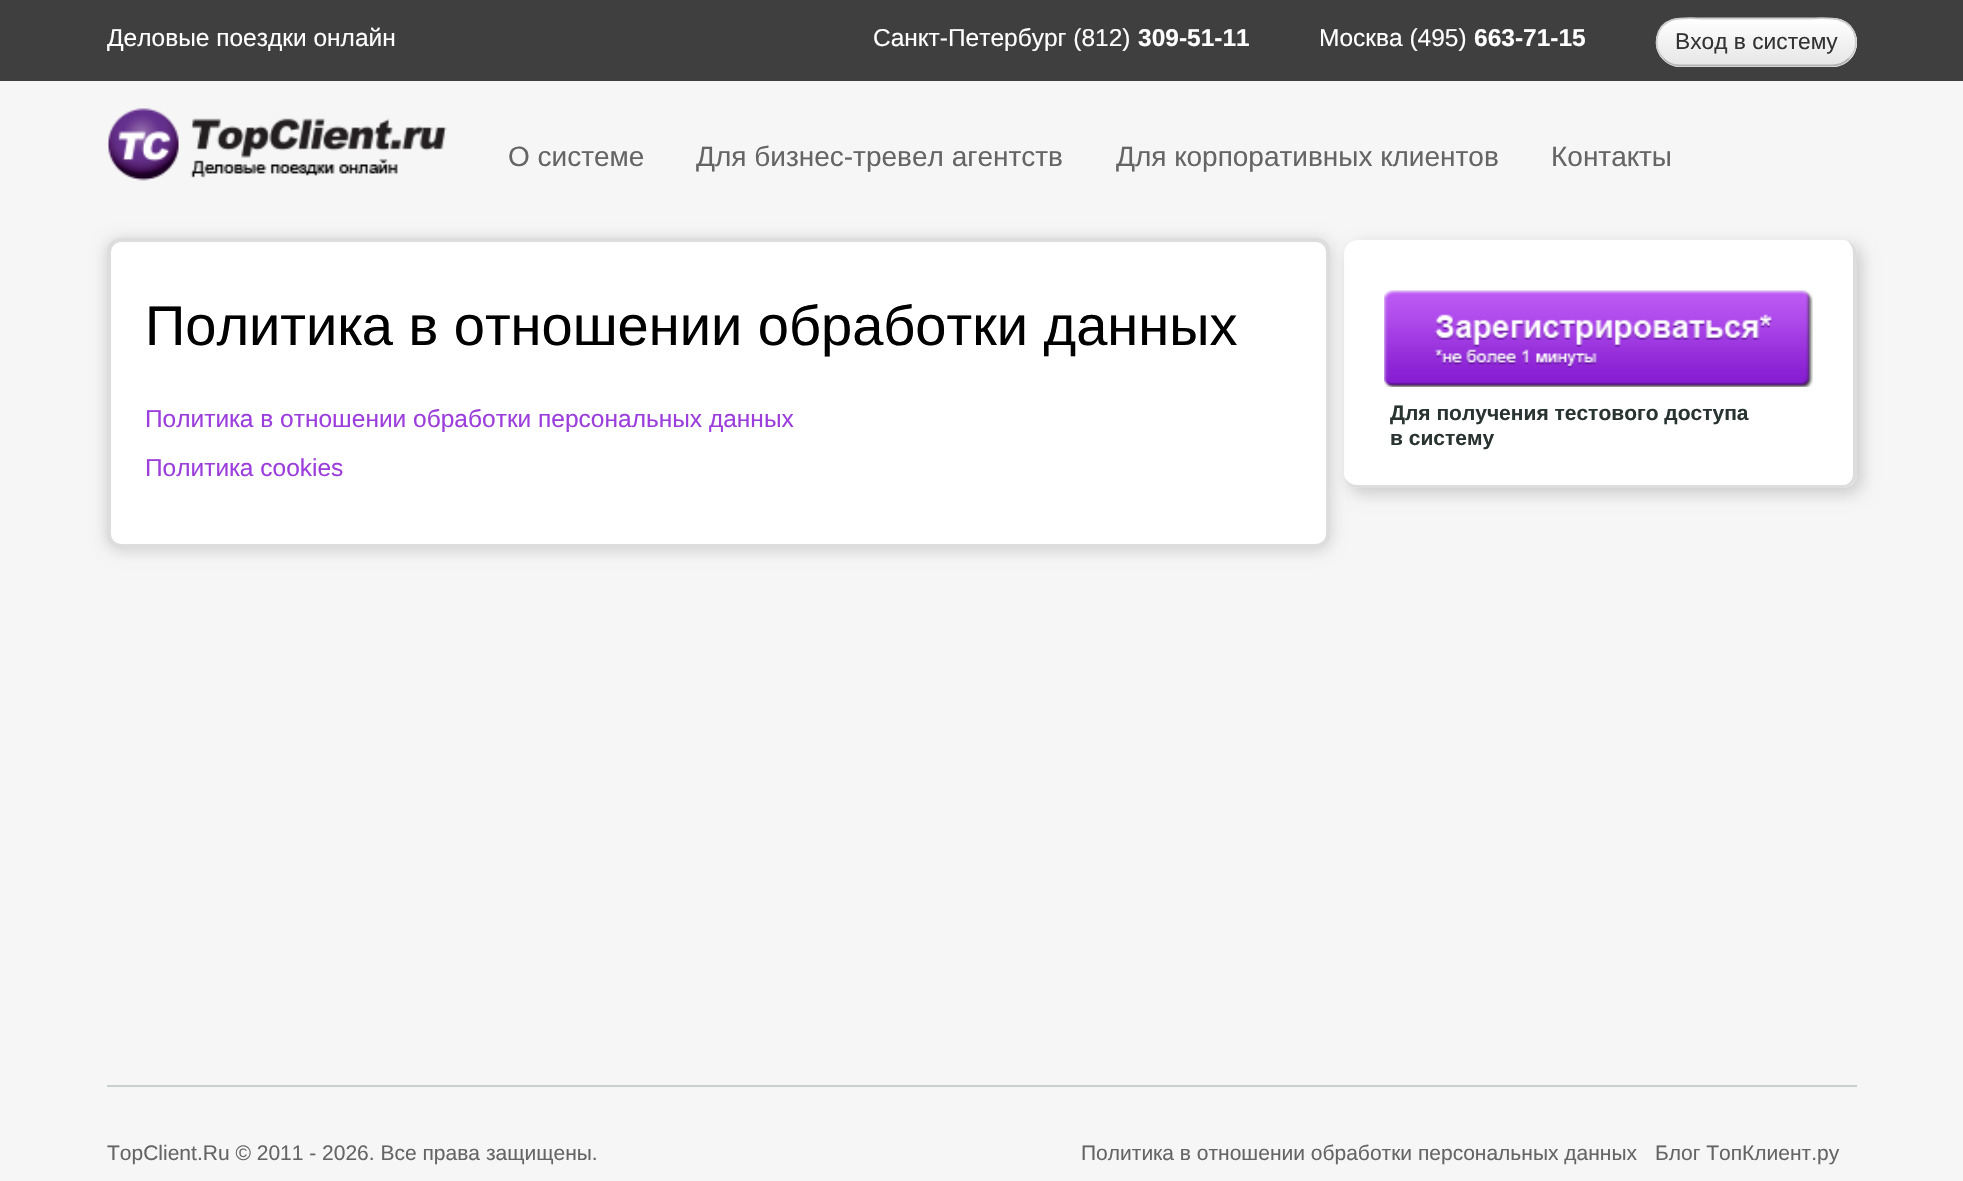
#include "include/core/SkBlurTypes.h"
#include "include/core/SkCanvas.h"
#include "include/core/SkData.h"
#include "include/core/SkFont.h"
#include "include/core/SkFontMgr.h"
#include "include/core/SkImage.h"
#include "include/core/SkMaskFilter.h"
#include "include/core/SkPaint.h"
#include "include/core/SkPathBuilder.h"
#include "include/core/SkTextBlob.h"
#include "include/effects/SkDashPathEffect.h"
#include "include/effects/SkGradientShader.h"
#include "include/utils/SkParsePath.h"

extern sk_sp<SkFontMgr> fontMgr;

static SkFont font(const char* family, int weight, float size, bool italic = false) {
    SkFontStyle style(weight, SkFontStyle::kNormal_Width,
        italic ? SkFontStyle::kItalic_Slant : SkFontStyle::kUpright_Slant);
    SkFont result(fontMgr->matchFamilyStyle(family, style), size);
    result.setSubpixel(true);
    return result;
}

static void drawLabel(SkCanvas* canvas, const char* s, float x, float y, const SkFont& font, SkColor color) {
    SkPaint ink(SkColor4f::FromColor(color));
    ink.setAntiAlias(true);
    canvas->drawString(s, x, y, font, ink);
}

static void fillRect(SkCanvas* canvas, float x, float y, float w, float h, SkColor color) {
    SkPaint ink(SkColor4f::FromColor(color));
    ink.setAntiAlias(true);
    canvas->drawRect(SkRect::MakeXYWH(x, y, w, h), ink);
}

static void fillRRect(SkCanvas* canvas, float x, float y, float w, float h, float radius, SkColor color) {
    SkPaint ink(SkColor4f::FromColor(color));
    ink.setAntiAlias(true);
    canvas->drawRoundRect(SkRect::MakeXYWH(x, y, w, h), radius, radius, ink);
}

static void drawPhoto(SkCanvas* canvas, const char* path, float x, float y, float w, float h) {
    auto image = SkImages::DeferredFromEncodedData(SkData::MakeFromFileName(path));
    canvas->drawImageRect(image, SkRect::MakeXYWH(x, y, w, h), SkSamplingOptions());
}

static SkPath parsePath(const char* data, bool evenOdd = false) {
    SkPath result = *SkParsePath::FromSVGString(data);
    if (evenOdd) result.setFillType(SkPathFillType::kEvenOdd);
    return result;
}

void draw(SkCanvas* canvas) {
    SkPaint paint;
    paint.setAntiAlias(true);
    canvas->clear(0xFFF6F6F6);
    fillRect(canvas, 0, 0, 1963, 81, 0xFF3F3F3F);
    SkFont font1 = font("Liberation Sans", 400, 24.5f);
    drawLabel(canvas, "Деловые поездки онлайн", 107, 46, font1, 0xFFFFFFFF);
    drawLabel(canvas, "Санкт-Петербург (812)", 873, 46, font1, 0xFFFFFFFF);
    SkFont font2 = font("Liberation Sans", 700, 24.5f);
    drawLabel(canvas, "309-51-11", 1138, 46, font2, 0xFFFFFFFF);
    drawLabel(canvas, "Москва (495)", 1319, 46, font1, 0xFFFFFFFF);
    drawLabel(canvas, "663-71-15", 1474, 46, font2, 0xFFFFFFFF);
    fillRRect(canvas, 1656, 18, 201, 49, 24.5f, 0xFFF5F5F5);
    canvas->save();
    canvas->clipPath(parsePath("M1680.5 18H1832.5C1846 18 1857 29 1857 42.5C1857 56 1846 67 1832.5 67H1680.5C1667 67 1656 56 1656 42.5C1656 29 1667 18 1680.5 18Z"), true);
    {
        const SkColor colors[] = {0xFFFFFFFF, 0xFFE6E6E6};
        const float stops[] = {0, 1};
        const SkPoint ends[] = {{1756, 19}, {1756, 65}};
        paint.setShader(SkGradientShader::MakeLinear(ends, colors, stops, 2, SkTileMode::kClamp));
        paint.setAlpha(255);
    }
    canvas->drawRect(SkRect::MakeXYWH(1656, 19, 201, 46), paint);
    canvas->restore();
    paint.setStroke(true);
    paint.setStrokeWidth(1.8f);
    paint.setShader(nullptr);
    paint.setColor(0xFFB3B3B3);
    canvas->drawPath(parsePath("M1849 58.5C1844.5 63 1838.5 65.5 1832 65.5H1680C1673.5 65.5 1667.5 63 1663.5 58.5"), paint);
    paint.setColor(0xFFCCCCCC);
    canvas->drawPath(parsePath("M1663.5 58.5C1658 53 1655.5 45 1657 37.5C1661.5 13.5 1687.5 18.5 1705.5 18.5H1807C1824.5 18.5 1850.5 13.5 1855.5 37.5C1857 45 1854.5 53 1849 58.5"), paint);
    SkFont font3 = font("Liberation Sans", 400, 22.75f);
    drawLabel(canvas, "Вход в систему", 1675, 49, font3, 0xFF333333);
    drawPhoto(canvas, "assets/img1.png", 107, 108, 340, 73);
    SkFont font4 = font("Liberation Sans", 400, 28);
    drawLabel(canvas, "О системе", 508, 166, font4, 0xFF656565);
    drawLabel(canvas, "Для бизнес-тревел агентств", 696, 166, font4, 0xFF656565);
    drawLabel(canvas, "Для корпоративных клиентов", 1116, 166, font4, 0xFF656565);
    drawLabel(canvas, "Контакты", 1551, 166, font4, 0xFF656565);
    paint.setStroke(false);
    paint.setMaskFilter(SkMaskFilter::MakeBlur(kNormal_SkBlurStyle, 8));
    canvas->drawRoundRect(SkRect::MakeXYWH(1349, 245, 513, 249), 14, 14, paint);
    paint.setMaskFilter(nullptr);
    fillRRect(canvas, 1344, 240, 513, 248, 14, 0xFFFFFFFF);
    paint.setColor(0xFFDDDDDD);
    canvas->drawPath(parsePath("M1358 240H1843C1850 240 1857 246 1857 254V474C1857 482 1850 488 1843 488H1358C1350 488 1344 482 1344 474V254C1344 246 1350 240 1358 240ZM1358 240H1843C1849 240 1853 246 1853 254V474C1853 480 1849 485 1843 485H1358C1350 485 1344 480 1344 474V254C1344 246 1350 240 1358 240Z", true), paint);
    paint.setColor(0xFFCCCCCC);
    paint.setMaskFilter(SkMaskFilter::MakeBlur(kNormal_SkBlurStyle, 8));
    canvas->drawRoundRect(SkRect::MakeXYWH(107, 240, 1223, 310), 14, 14, paint);
    paint.setMaskFilter(nullptr);
    paint.setColor(0xFFFFFFFF);
    canvas->drawRoundRect(SkRect::MakeXYWH(109, 240, 1219, 306), 12, 12, paint);
    paint.setStroke(true);
    paint.setStrokeWidth(4);
    paint.setColor(0xFFDDDDDD);
    canvas->drawRoundRect(SkRect::MakeXYWH(109, 240, 1219, 306), 12, 12, paint);
    SkFont font5 = font("Liberation Sans", 400, 56);
    drawLabel(canvas, "Политика в отношении обработки данных", 145, 345, font5, 0xFF000000);
    drawLabel(canvas, "Политика в отношении обработки персональных данных", 145, 427, font1, 0xFF9C3EDC);
    drawLabel(canvas, "Политика cookies", 145, 476, font1, 0xFF9C3EDC);
    drawPhoto(canvas, "assets/img2.png", 1384, 290, 429, 97);
    SkFont font6 = font("Liberation Sans", 700, 21);
    drawLabel(canvas, "Для получения тестового доступа", 1390, 420, font6, 0xFF293432);
    drawLabel(canvas, "в систему", 1390, 445, font6, 0xFF293432);
    fillRect(canvas, 107, 1085, 1750, 2, 0xFFC7D0D1);
    SkFont font7 = font("Liberation Sans", 400, 21);
    drawLabel(canvas, "TopClient.Ru © 2011 - 2026. Все права защищены.", 107, 1160, font7, 0xFF656565);
    drawLabel(canvas, "Политика в отношении обработки персональных данных", 1081, 1160, font7, 0xFF656565);
    drawLabel(canvas, "Блог ТопКлиент.ру", 1655, 1160, font7, 0xFF656565);
}
